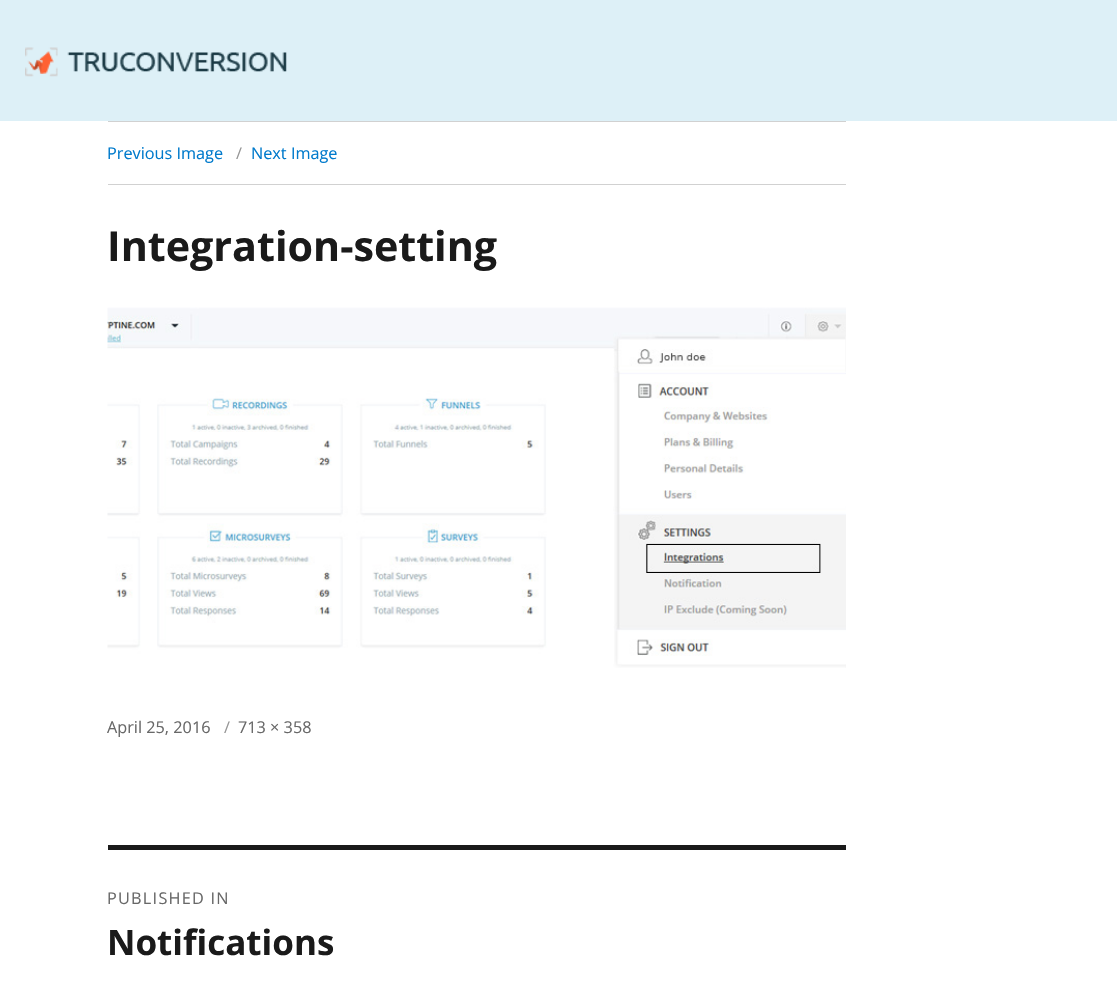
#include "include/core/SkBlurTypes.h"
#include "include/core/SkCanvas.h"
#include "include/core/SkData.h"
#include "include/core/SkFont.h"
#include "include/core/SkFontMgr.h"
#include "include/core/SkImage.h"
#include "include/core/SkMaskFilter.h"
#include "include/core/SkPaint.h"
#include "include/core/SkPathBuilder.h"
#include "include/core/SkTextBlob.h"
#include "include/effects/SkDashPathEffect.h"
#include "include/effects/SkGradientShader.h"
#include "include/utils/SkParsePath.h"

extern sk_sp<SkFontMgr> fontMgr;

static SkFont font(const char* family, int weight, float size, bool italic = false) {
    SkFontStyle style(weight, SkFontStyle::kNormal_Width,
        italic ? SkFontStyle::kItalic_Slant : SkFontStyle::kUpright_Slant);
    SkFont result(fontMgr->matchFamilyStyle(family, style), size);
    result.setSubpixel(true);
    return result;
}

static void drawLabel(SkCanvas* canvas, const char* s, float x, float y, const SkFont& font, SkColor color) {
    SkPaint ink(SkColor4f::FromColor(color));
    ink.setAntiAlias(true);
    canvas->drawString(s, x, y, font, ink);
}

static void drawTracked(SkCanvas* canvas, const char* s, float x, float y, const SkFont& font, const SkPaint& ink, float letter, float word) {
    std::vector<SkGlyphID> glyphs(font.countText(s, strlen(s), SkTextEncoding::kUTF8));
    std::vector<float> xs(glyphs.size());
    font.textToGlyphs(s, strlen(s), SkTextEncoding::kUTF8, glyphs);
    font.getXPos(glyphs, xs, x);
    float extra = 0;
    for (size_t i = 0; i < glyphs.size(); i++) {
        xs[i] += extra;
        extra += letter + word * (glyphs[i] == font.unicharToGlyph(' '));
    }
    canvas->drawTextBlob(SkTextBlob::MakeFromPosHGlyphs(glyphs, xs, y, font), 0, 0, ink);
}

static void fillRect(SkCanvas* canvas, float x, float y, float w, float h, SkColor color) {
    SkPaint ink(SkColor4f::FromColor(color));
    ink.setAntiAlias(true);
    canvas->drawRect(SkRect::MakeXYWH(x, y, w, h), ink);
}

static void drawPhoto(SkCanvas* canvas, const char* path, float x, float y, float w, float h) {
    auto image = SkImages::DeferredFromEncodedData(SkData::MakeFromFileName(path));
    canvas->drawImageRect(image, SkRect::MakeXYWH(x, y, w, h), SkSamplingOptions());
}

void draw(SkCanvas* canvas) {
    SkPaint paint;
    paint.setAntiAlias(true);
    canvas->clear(0xFFFFFFFF);
    fillRect(canvas, 0, 0, 1117, 121, 0xFFDDF0F7);
    drawPhoto(canvas, "assets/img1.png", 25, 47, 262, 30);
    fillRect(canvas, 108, 121, 738, 1, 0xFFD1D1D1);
    fillRect(canvas, 108, 184, 738, 1, 0xFFD1D1D1);
    SkFont font1 = font("Open Sans", 400, 16.25f);
    drawLabel(canvas, "Previous Image", 107, 159, font1, 0xFF007ACC);
    drawLabel(canvas, "/", 236, 159, font1, 0xFF959595);
    drawLabel(canvas, "Next Image", 251, 159, font1, 0xFF007ACC);
    SkFont font2 = font("Open Sans", 700, 41.25f);
    drawLabel(canvas, "Integration-setting", 107, 261, font2, 0xFF1A1A1A);
    drawPhoto(canvas, "assets/img2.png", 107, 307, 739, 361);
    drawLabel(canvas, "April 25, 2016", 107, 733, font1, 0xFF686868);
    drawLabel(canvas, "/", 224, 733, font1, 0xFF959595);
    drawLabel(canvas, "713 × 358", 238, 733, font1, 0xFF686868);
    fillRect(canvas, 108, 845, 738, 5, 0xFF1A1A1A);
    paint.setColor(0xFF686868);
    drawTracked(canvas, "PUBLISHED IN", 107, 904, font1, paint, 1.25f, 0);
    SkFont font3 = font("Open Sans", 700, 35);
    drawLabel(canvas, "Notifications", 107, 955, font3, 0xFF1A1A1A);
}
